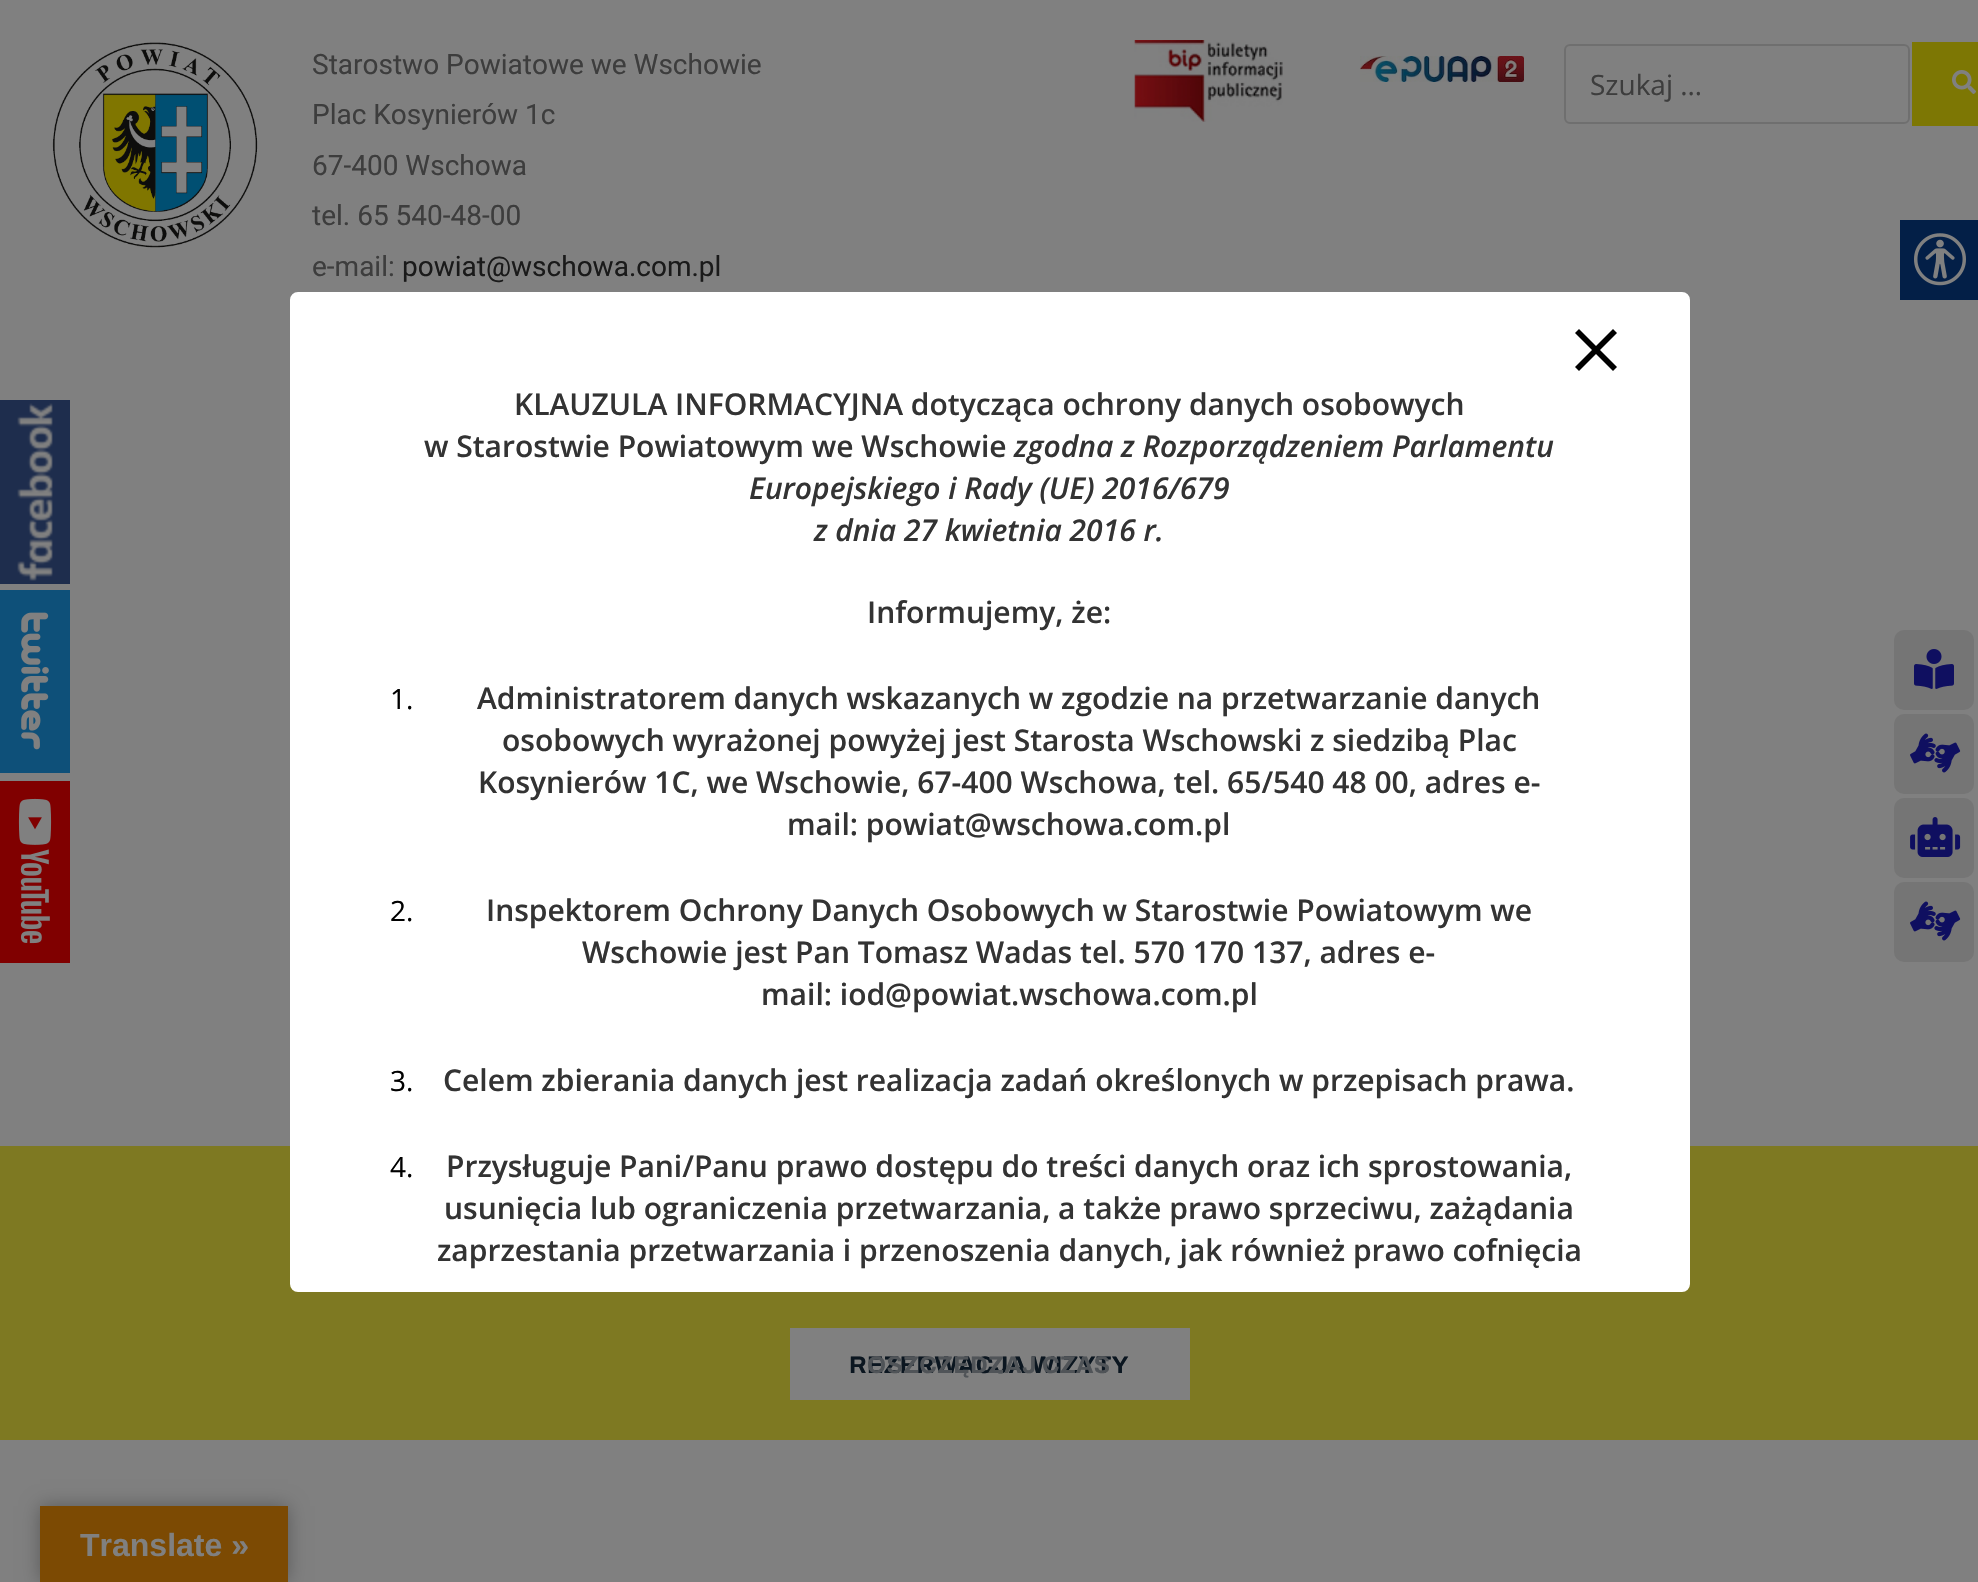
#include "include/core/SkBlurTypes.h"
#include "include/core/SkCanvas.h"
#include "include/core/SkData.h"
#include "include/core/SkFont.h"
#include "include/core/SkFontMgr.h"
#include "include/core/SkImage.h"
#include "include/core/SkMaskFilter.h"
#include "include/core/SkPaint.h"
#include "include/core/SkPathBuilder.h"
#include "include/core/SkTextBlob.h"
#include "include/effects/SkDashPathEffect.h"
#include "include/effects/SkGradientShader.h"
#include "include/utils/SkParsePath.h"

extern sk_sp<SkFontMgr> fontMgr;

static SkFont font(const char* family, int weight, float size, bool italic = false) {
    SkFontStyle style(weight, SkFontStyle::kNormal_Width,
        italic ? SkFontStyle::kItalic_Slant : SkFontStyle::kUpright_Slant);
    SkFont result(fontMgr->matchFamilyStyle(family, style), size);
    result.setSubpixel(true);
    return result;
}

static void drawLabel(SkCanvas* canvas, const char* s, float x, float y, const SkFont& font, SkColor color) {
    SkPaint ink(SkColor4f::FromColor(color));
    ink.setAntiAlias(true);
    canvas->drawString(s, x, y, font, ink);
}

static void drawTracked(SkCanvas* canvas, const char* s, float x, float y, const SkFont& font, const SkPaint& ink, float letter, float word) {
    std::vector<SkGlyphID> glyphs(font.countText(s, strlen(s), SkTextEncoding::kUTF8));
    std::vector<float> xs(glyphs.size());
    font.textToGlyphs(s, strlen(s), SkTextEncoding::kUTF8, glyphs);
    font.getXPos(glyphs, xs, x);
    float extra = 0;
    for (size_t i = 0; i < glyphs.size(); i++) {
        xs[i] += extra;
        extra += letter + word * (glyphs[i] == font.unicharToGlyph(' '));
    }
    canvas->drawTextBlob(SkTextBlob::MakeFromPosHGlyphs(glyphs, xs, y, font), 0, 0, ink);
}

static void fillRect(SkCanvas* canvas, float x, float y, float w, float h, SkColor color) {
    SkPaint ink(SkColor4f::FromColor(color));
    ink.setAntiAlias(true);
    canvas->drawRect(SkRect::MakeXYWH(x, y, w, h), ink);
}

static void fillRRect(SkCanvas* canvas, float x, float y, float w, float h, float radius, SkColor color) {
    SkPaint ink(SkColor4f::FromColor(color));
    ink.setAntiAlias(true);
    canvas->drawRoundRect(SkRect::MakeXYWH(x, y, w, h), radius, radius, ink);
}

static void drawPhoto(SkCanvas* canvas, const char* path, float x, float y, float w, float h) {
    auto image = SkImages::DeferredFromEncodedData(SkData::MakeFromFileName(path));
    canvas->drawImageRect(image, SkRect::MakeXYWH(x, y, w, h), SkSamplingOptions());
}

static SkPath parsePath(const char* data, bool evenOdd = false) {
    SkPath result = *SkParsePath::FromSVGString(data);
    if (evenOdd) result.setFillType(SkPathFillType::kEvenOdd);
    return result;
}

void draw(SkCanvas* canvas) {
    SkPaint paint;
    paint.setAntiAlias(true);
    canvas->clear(0xFF808080);
    drawPhoto(canvas, "assets/img1.png", 52, 42, 206, 206);
    SkFont font1 = font("Roboto", 400, 28);
    drawLabel(canvas, "Starostwo Powiatowe we Wschowie", 312, 74, font1, 0xFF3D3D3D);
    drawLabel(canvas, "Plac Kosynierów 1c", 312, 124, font1, 0xFF3D3D3D);
    drawLabel(canvas, "67-400 Wschowa", 312, 175, font1, 0xFF3D3D3D);
    drawLabel(canvas, "tel. 65 540-48-00", 312, 225, font1, 0xFF3D3D3D);
    drawLabel(canvas, "e-mail:", 312, 276, font1, 0xFF3D3D3D);
    drawLabel(canvas, "powiat@wschowa.com.pl", 402, 276, font1, 0xFF1A1A1A);
    drawPhoto(canvas, "assets/img2.png", 1134, 40, 149, 82);
    drawPhoto(canvas, "assets/img3.png", 1360, 56, 164, 26);
    paint.setStroke(true);
    paint.setStrokeWidth(2);
    paint.setColor(0xFF6F6F6F);
    canvas->drawRoundRect(SkRect::MakeXYWH(1565, 45, 344, 78), 5, 5, paint);
    SkFont font2 = font("Open Sans", 400, 28);
    drawLabel(canvas, "Szukaj …", 1590, 95, font2, 0xFF3D3D3D);
    fillRect(canvas, 1912, 42, 66, 84, 0xFF7D7704);
    drawPhoto(canvas, "assets/img4.png", 1952, 70, 24, 24);
    fillRect(canvas, 0, 1146, 1978, 294, 0xFF7E7922);
    fillRect(canvas, 790, 1328, 400, 72, 0xFF808080);
    SkFont font3 = font("Archivo", 700, 24);
    paint.setStroke(false);
    paint.setColor(0xFF0B1620);
    drawTracked(canvas, "REZERWACJA WIZYTY", 849, 1373, font3, paint, 0.4f, 0);
    paint.setColor(0xFF505458);
    drawTracked(canvas, "OSZCZĘDZAJ CZAS", 867, 1373, font3, paint, 0.4f, 0);
    fillRect(canvas, 1900, 220, 78, 80, 0xFF031F47);
    drawPhoto(canvas, "assets/img5.png", 1914, 233, 52, 53);
    drawPhoto(canvas, "assets/img6.png", 0, 400, 70, 184);
    drawPhoto(canvas, "assets/img7.png", 0, 590, 70, 183);
    drawPhoto(canvas, "assets/img8.png", 0, 781, 70, 182);
    paint.setColor(0xFFFFFFFF);
    canvas->drawRoundRect(SkRect::MakeXYWH(291, 293, 1398, 998), 7, 7, paint);
    paint.setStroke(true);
    canvas->drawRoundRect(SkRect::MakeXYWH(291, 293, 1398, 998), 7, 7, paint);
    paint.setStroke(false);
    paint.setColor(0xFF000000);
    canvas->drawPath(parsePath("M1617 333L1613 329L1596 346L1579 329L1575 333L1592 350L1575 367L1579 371L1596 354L1613 371L1617 367L1600 350Z"), paint);
    SkFont font4 = font("Open Sans", 600, 30);
    drawLabel(canvas, "KLAUZULA INFORMACYJNA dotycząca ochrony danych osobowych", 514, 415, font4, 0xFF333333);
    drawLabel(canvas, "w Starostwie Powiatowym we Wschowie", 424, 457, font4, 0xFF333333);
    SkFont font5 = font("Open Sans", 600, 30, true);
    drawLabel(canvas, "zgodna z Rozporządzeniem Parlamentu", 1014, 457, font5, 0xFF333333);
    drawLabel(canvas, "Europejskiego i Rady (UE) 2016/679", 749, 499, font5, 0xFF333333);
    drawLabel(canvas, "z dnia 27 kwietnia 2016 r.", 814, 541, font5, 0xFF333333);
    drawLabel(canvas, "Informujemy, że:", 867, 623, font4, 0xFF333333);
    drawLabel(canvas, "1.", 390, 709, font2, 0xFF000000);
    drawLabel(canvas, "Administratorem danych wskazanych w zgodzie na przetwarzanie danych", 477, 709, font4, 0xFF333333);
    drawLabel(canvas, "osobowych wyrażonej powyżej jest Starosta Wschowski z siedzibą Plac", 502, 751, font4, 0xFF333333);
    drawLabel(canvas, "Kosynierów 1C, we Wschowie, 67-400 Wschowa, tel. 65/540 48 00, adres e-", 478, 793, font4, 0xFF333333);
    drawLabel(canvas, "mail: powiat@wschowa.com.pl", 787, 835, font4, 0xFF333333);
    drawLabel(canvas, "2.", 390, 921, font2, 0xFF000000);
    drawLabel(canvas, "Inspektorem Ochrony Danych Osobowych w Starostwie Powiatowym we", 486, 921, font4, 0xFF333333);
    drawLabel(canvas, "Wschowie jest Pan Tomasz Wadas tel. 570 170 137, adres e-", 582, 963, font4, 0xFF333333);
    drawLabel(canvas, "mail: iod@powiat.wschowa.com.pl", 761, 1005, font4, 0xFF333333);
    drawLabel(canvas, "3.", 390, 1091, font2, 0xFF000000);
    drawLabel(canvas, "Celem zbierania danych jest realizacja zadań określonych w przepisach prawa.", 443, 1091, font4, 0xFF333333);
    drawLabel(canvas, "4.", 390, 1177, font2, 0xFF000000);
    drawLabel(canvas, "Przysługuje Pani/Panu prawo dostępu do treści danych oraz ich sprostowania,", 446, 1177, font4, 0xFF333333);
    drawLabel(canvas, "usunięcia lub ograniczenia przetwarzania, a także prawo sprzeciwu, zażądania", 444, 1219, font4, 0xFF333333);
    drawLabel(canvas, "zaprzestania przetwarzania i przenoszenia danych, jak również prawo cofnięcia", 437, 1261, font4, 0xFF333333);
    fillRRect(canvas, 1894, 630, 80, 80, 10, 0xFF757575);
    drawPhoto(canvas, "assets/img9.png", 1914, 649, 40, 40);
    fillRRect(canvas, 1894, 714, 80, 80, 10, 0xFF757575);
    drawPhoto(canvas, "assets/img10.png", 1910, 733, 51, 40);
    fillRRect(canvas, 1894, 798, 80, 80, 10, 0xFF757575);
    drawPhoto(canvas, "assets/img11.png", 1910, 817, 51, 40);
    fillRRect(canvas, 1894, 882, 80, 80, 10, 0xFF757575);
    drawPhoto(canvas, "assets/img10.png", 1910, 901, 51, 40);
    paint.setColor(0x4D000000);
    paint.setMaskFilter(SkMaskFilter::MakeBlur(kNormal_SkBlurStyle, 9));
    canvas->drawRect(SkRect::MakeXYWH(40, 1506, 248, 76), paint);
    paint.setMaskFilter(nullptr);
    fillRect(canvas, 40, 1506, 248, 76, 0xFF7C4A03);
    SkFont font6 = font("Liberation Sans", 700, 32);
    drawLabel(canvas, "Translate »", 80, 1556, font6, 0xFF808080);
}
